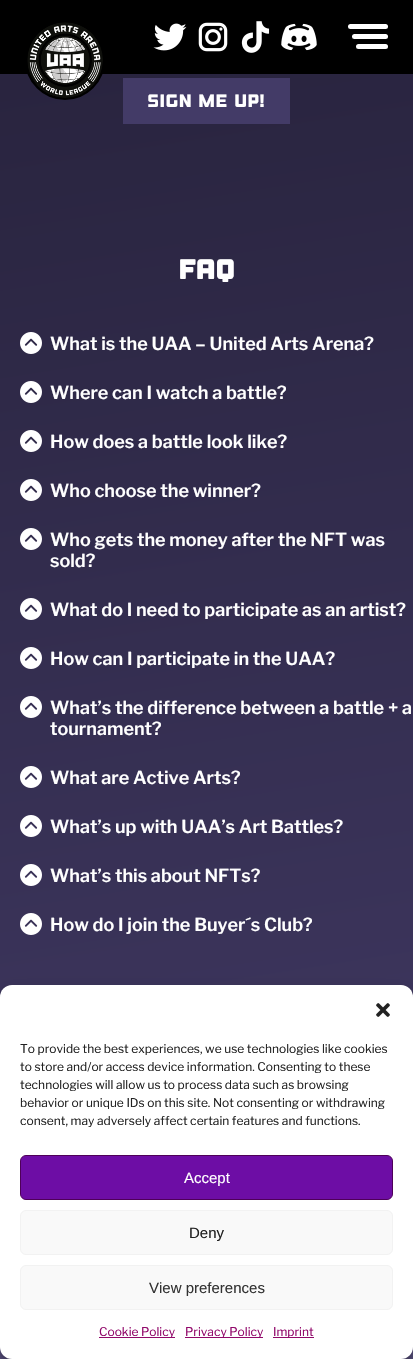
#include "include/core/SkBlurTypes.h"
#include "include/core/SkCanvas.h"
#include "include/core/SkData.h"
#include "include/core/SkFont.h"
#include "include/core/SkFontMgr.h"
#include "include/core/SkImage.h"
#include "include/core/SkMaskFilter.h"
#include "include/core/SkPaint.h"
#include "include/core/SkPathBuilder.h"
#include "include/core/SkTextBlob.h"
#include "include/effects/SkDashPathEffect.h"
#include "include/effects/SkGradientShader.h"
#include "include/utils/SkParsePath.h"

extern sk_sp<SkFontMgr> fontMgr;

static SkFont font(const char* family, int weight, float size, bool italic = false) {
    SkFontStyle style(weight, SkFontStyle::kNormal_Width,
        italic ? SkFontStyle::kItalic_Slant : SkFontStyle::kUpright_Slant);
    SkFont result(fontMgr->matchFamilyStyle(family, style), size);
    result.setSubpixel(true);
    return result;
}

static void drawLabel(SkCanvas* canvas, const char* s, float x, float y, const SkFont& font, SkColor color) {
    SkPaint ink(SkColor4f::FromColor(color));
    ink.setAntiAlias(true);
    canvas->drawString(s, x, y, font, ink);
}

static void fillRect(SkCanvas* canvas, float x, float y, float w, float h, SkColor color) {
    SkPaint ink(SkColor4f::FromColor(color));
    ink.setAntiAlias(true);
    canvas->drawRect(SkRect::MakeXYWH(x, y, w, h), ink);
}

static void fillRRect(SkCanvas* canvas, float x, float y, float w, float h, float radius, SkColor color) {
    SkPaint ink(SkColor4f::FromColor(color));
    ink.setAntiAlias(true);
    canvas->drawRoundRect(SkRect::MakeXYWH(x, y, w, h), radius, radius, ink);
}

static void drawPhoto(SkCanvas* canvas, const char* path, float x, float y, float w, float h) {
    auto image = SkImages::DeferredFromEncodedData(SkData::MakeFromFileName(path));
    canvas->drawImageRect(image, SkRect::MakeXYWH(x, y, w, h), SkSamplingOptions());
}

void draw(SkCanvas* canvas) {
    SkPaint paint;
    paint.setAntiAlias(true);
    canvas->clear(0xFFFFFFFF);
    {
        const SkColor colors[] = {0xFF433B67, 0xFF000000, 0xFF2F164F};
        const float stops[] = {0.15f, 0.76f, 1};
        const SkPoint ends[] = {{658, 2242}, {-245, -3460}};
        paint.setShader(SkGradientShader::MakeLinear(ends, colors, stops, 3, SkTileMode::kClamp));
        paint.setAlpha(255);
    }
    canvas->drawRect(SkRect::MakeXYWH(0, 74, 413, 923), paint);
    fillRect(canvas, 0, 0, 413, 74, 0xFF000000);
    drawPhoto(canvas, "assets/img1.png", 153, 23, 34, 28);
    drawPhoto(canvas, "assets/img2.png", 198, 22, 30, 30);
    drawPhoto(canvas, "assets/img3.png", 241, 21, 29, 32);
    drawPhoto(canvas, "assets/img4.png", 281, 23, 36, 28);
    fillRRect(canvas, 348, 24, 40, 5, 2.5f, 0xFFFFFFFF);
    fillRRect(canvas, 352, 34, 36, 5, 2.5f, 0xFFFFFFFF);
    fillRRect(canvas, 356, 44, 32, 5, 2.5f, 0xFFFFFFFF);
    paint.setShader(nullptr);
    paint.setColor(0xFF000000);
    canvas->drawCircle(65, 60, 39, paint);
    paint.setStroke(true);
    paint.setStrokeWidth(2);
    canvas->drawCircle(65, 60, 39, paint);
    drawPhoto(canvas, "assets/img5.png", 27, 22, 76, 76);
    fillRect(canvas, 123, 78, 167, 46, 0xFF433B67);
    SkFont font1 = font("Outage", 400, 18);
    drawLabel(canvas, "Sign me up!", 147, 107, font1, 0xFFFFFFFF);
    SkFont font2 = font("Outage", 700, 27);
    drawLabel(canvas, "FAQ", 178, 279, font2, 0xFFFFFFFF);
    drawPhoto(canvas, "assets/img6.png", 20, 332, 22, 22);
    SkFont font3 = font("Libre Franklin", 100, 18);
    drawLabel(canvas, "What is the UAA – United Arts Arena?", 50, 350, font3, 0xFFFFFFFF);
    drawPhoto(canvas, "assets/img7.png", 20, 381, 22, 22);
    drawLabel(canvas, "Where can I watch a battle?", 50, 399, font3, 0xFFFFFFFF);
    drawPhoto(canvas, "assets/img8.png", 20, 430, 22, 22);
    drawLabel(canvas, "How does a battle look like?", 50, 448, font3, 0xFFFFFFFF);
    drawPhoto(canvas, "assets/img9.png", 20, 479, 22, 22);
    drawLabel(canvas, "Who choose the winner?", 50, 497, font3, 0xFFFFFFFF);
    drawPhoto(canvas, "assets/img10.png", 20, 528, 22, 22);
    drawLabel(canvas, "Who gets the money after the NFT was", 50, 546, font3, 0xFFFFFFFF);
    drawLabel(canvas, "sold?", 50, 567, font3, 0xFFFFFFFF);
    drawPhoto(canvas, "assets/img11.png", 20, 598, 22, 22);
    drawLabel(canvas, "What do I need to participate as an artist?", 50, 616, font3, 0xFFFFFFFF);
    drawPhoto(canvas, "assets/img12.png", 20, 647, 22, 22);
    drawLabel(canvas, "How can I participate in the UAA?", 50, 665, font3, 0xFFFFFFFF);
    drawPhoto(canvas, "assets/img13.png", 20, 696, 22, 22);
    drawLabel(canvas, "What’s the difference between a battle + a", 50, 714, font3, 0xFFFFFFFF);
    drawLabel(canvas, "tournament?", 50, 735, font3, 0xFFFFFFFF);
    drawPhoto(canvas, "assets/img14.png", 20, 766, 22, 22);
    drawLabel(canvas, "What are Active Arts?", 50, 784, font3, 0xFFFFFFFF);
    drawPhoto(canvas, "assets/img15.png", 20, 815, 22, 22);
    drawLabel(canvas, "What’s up with UAA’s Art Battles?", 50, 833, font3, 0xFFFFFFFF);
    drawPhoto(canvas, "assets/img16.png", 20, 864, 22, 22);
    drawLabel(canvas, "What’s this about NFTs?", 50, 882, font3, 0xFFFFFFFF);
    drawPhoto(canvas, "assets/img17.png", 20, 913, 22, 22);
    drawLabel(canvas, "How do I join the Buyer´s Club?", 50, 931, font3, 0xFFFFFFFF);
    fillRect(canvas, 0, 1347, 413, 12, 0xFF5B5282);
    paint.setStroke(false);
    paint.setColor(0x3B000000);
    paint.setMaskFilter(SkMaskFilter::MakeBlur(kNormal_SkBlurStyle, 3));
    canvas->drawRoundRect(SkRect::MakeXYWH(0, 991, 413, 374), 12, 12, paint);
    paint.setMaskFilter(nullptr);
    paint.setColor(0x30000000);
    paint.setMaskFilter(SkMaskFilter::MakeBlur(kNormal_SkBlurStyle, 10));
    canvas->drawRoundRect(SkRect::MakeXYWH(0, 995, 413, 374), 12, 12, paint);
    paint.setMaskFilter(nullptr);
    fillRRect(canvas, 0, 985, 413, 374, 12, 0xFFFFFFFF);
    drawPhoto(canvas, "assets/img18.png", 376, 1003, 14, 14);
    SkFont font4 = font("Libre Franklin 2", 100, 12);
    drawLabel(canvas, "To provide the best experiences, we use technologies like cookies", 20, 1053, font4, 0xFF222222);
    drawLabel(canvas, "to store and/or access device information. Consenting to these", 20, 1071, font4, 0xFF222222);
    drawLabel(canvas, "technologies will allow us to process data such as browsing", 20, 1089, font4, 0xFF222222);
    drawLabel(canvas, "behavior or unique IDs on this site. Not consenting or withdrawing", 20, 1107, font4, 0xFF222222);
    drawLabel(canvas, "consent, may adversely affect certain features and functions.", 20, 1125, font4, 0xFF222222);
    paint.setColor(0xFF6D0DA5);
    canvas->drawRoundRect(SkRect::MakeXYWH(20.5f, 1155.5f, 372, 44), 5.5f, 5.5f, paint);
    paint.setStroke(true);
    paint.setStrokeWidth(1);
    paint.setColor(0xFF4E0059);
    canvas->drawRoundRect(SkRect::MakeXYWH(20.5f, 1155.5f, 372, 44), 5.5f, 5.5f, paint);
    SkFont font5 = font("Liberation Sans", 400, 15);
    drawLabel(canvas, "Accept", 184, 1183, font5, 0xFFFFFFFF);
    paint.setStroke(false);
    paint.setColor(0xFFF9F9F9);
    canvas->drawRoundRect(SkRect::MakeXYWH(20.5f, 1210.5f, 372, 44), 5.5f, 5.5f, paint);
    paint.setStroke(true);
    paint.setColor(0xFFF2F2F2);
    canvas->drawRoundRect(SkRect::MakeXYWH(20.5f, 1210.5f, 372, 44), 5.5f, 5.5f, paint);
    drawLabel(canvas, "Deny", 189, 1238, font5, 0xFF222222);
    paint.setStroke(false);
    paint.setColor(0xFFF9F9F9);
    canvas->drawRoundRect(SkRect::MakeXYWH(20.5f, 1265.5f, 372, 44), 5.5f, 5.5f, paint);
    paint.setStroke(true);
    paint.setColor(0xFFF2F2F2);
    canvas->drawRoundRect(SkRect::MakeXYWH(20.5f, 1265.5f, 372, 44), 5.5f, 5.5f, paint);
    drawLabel(canvas, "View preferences", 149, 1293, font5, 0xFF333333);
    fillRect(canvas, 99, 1337, 76, 1, 0xFF91086A);
    drawLabel(canvas, "Cookie Policy", 99, 1336, font4, 0xFF91086A);
    fillRect(canvas, 185, 1337, 78, 1, 0xFF91086A);
    drawLabel(canvas, "Privacy Policy", 185, 1336, font4, 0xFF91086A);
    fillRect(canvas, 273, 1337, 41, 1, 0xFF91086A);
    drawLabel(canvas, "Imprint", 273, 1336, font4, 0xFF91086A);
}
